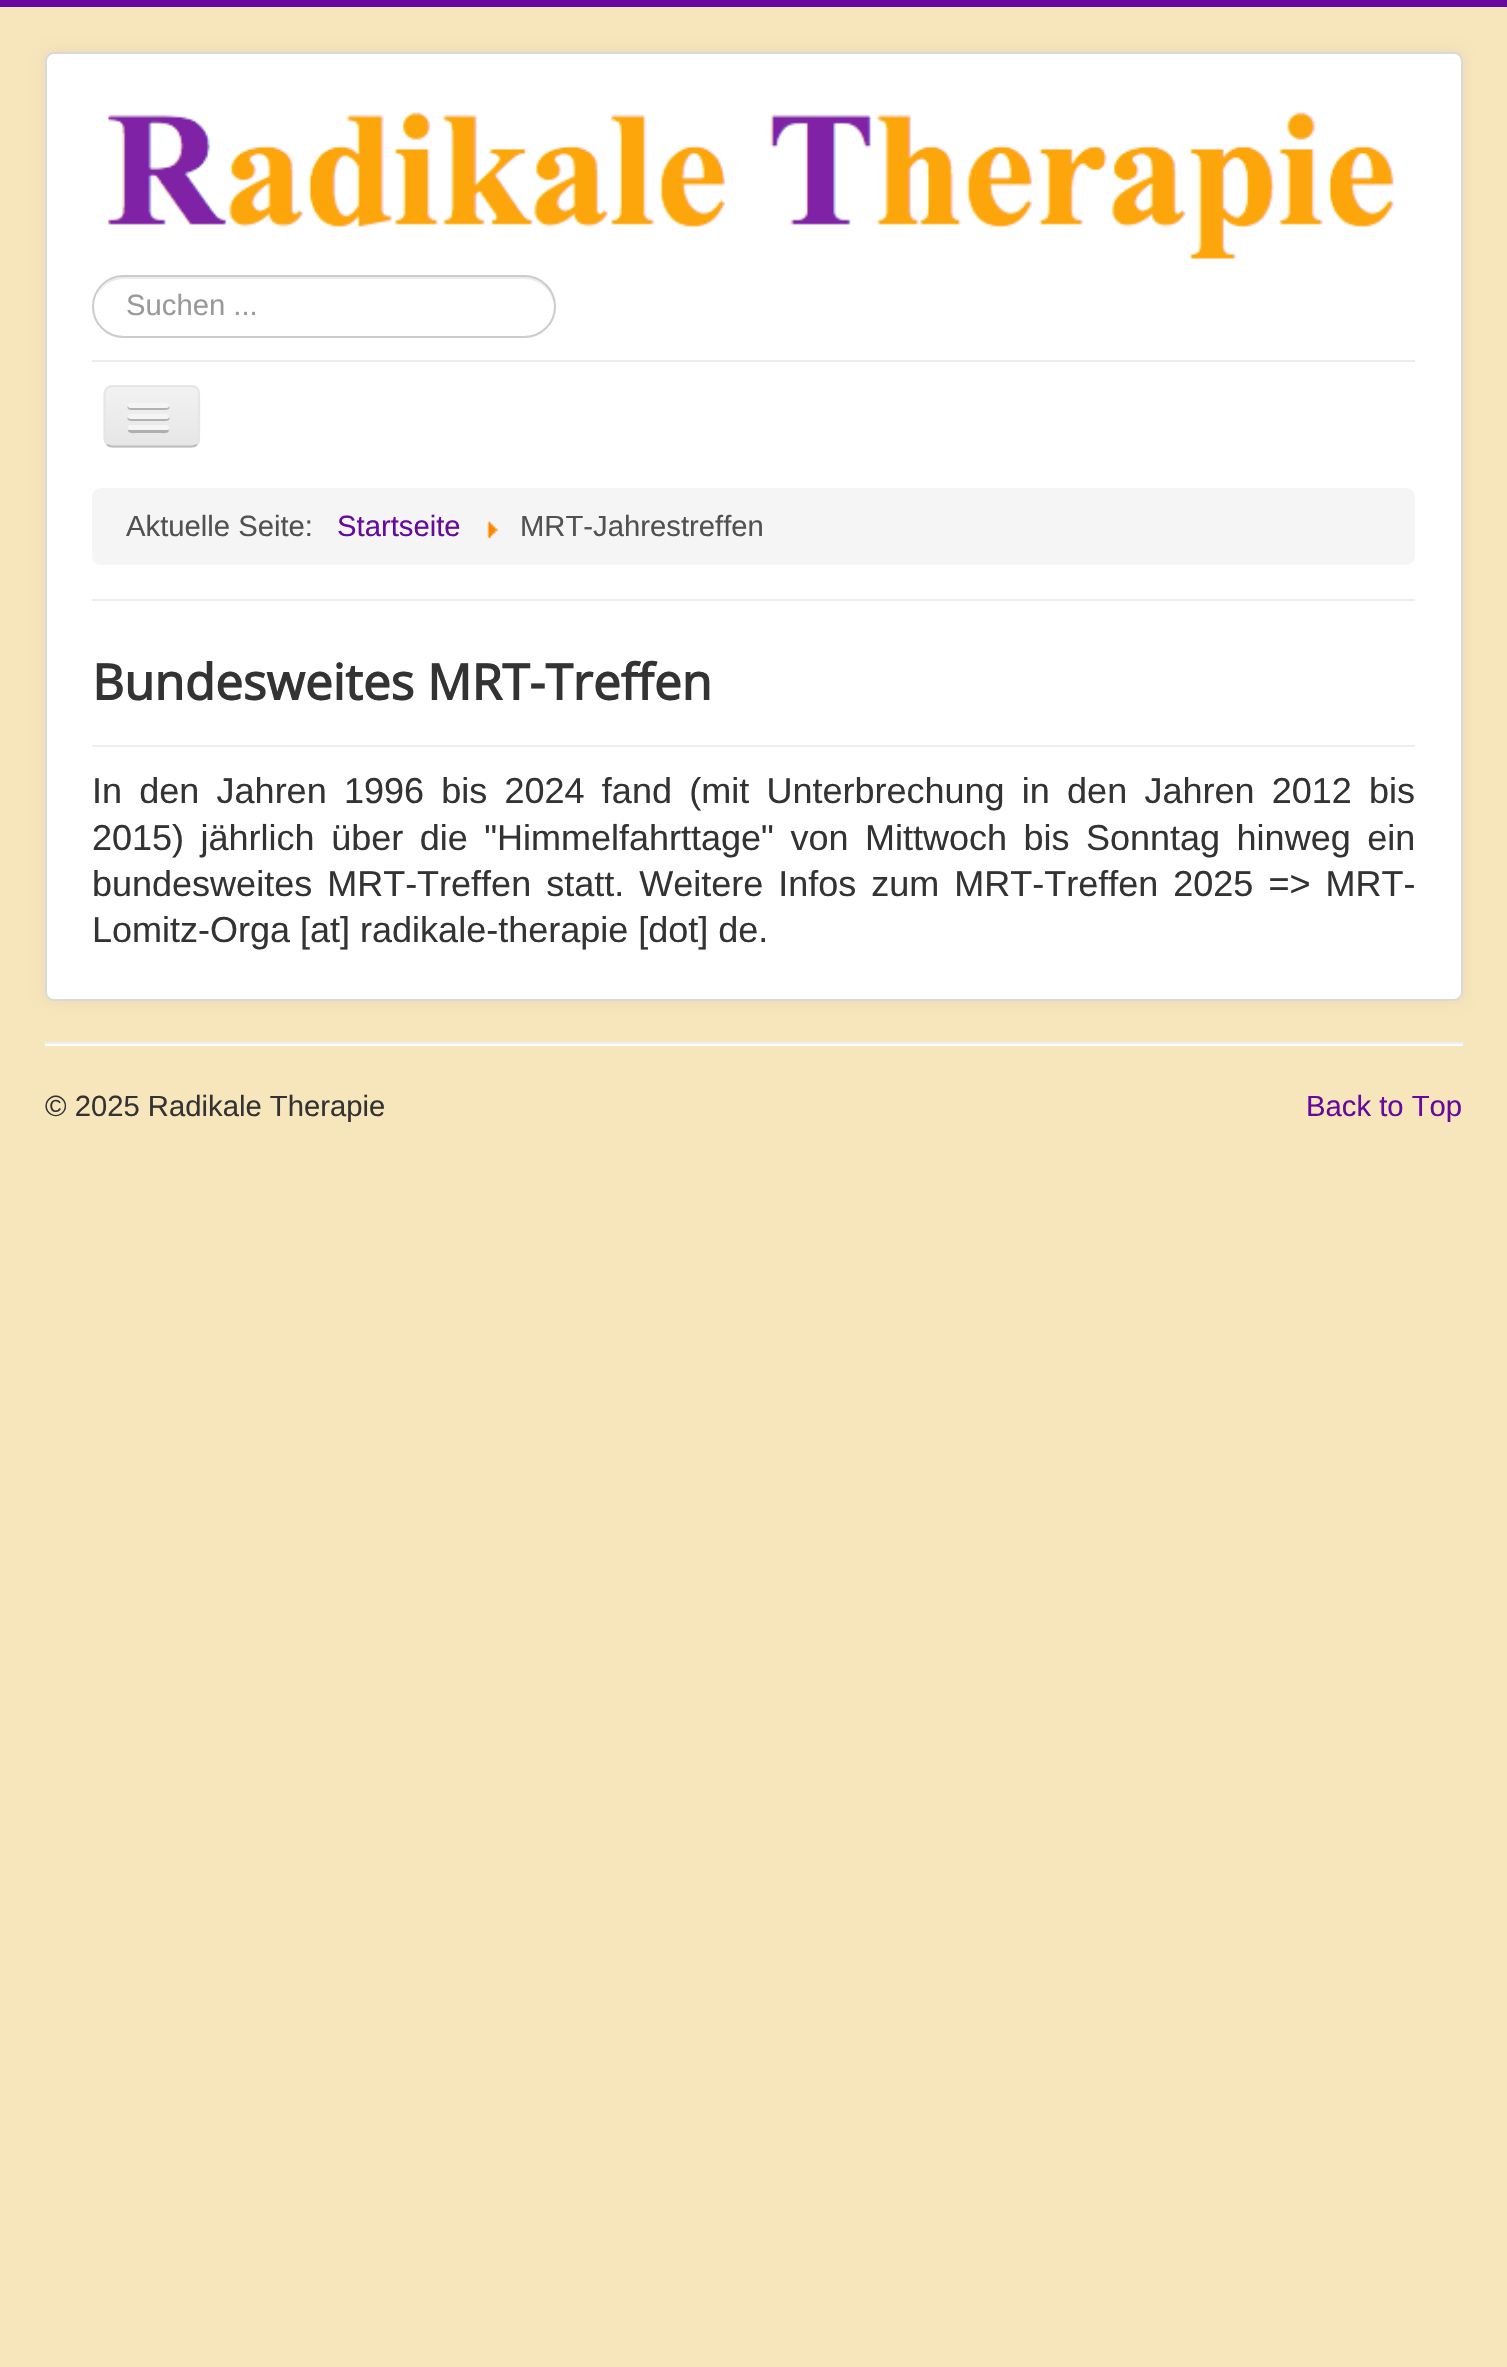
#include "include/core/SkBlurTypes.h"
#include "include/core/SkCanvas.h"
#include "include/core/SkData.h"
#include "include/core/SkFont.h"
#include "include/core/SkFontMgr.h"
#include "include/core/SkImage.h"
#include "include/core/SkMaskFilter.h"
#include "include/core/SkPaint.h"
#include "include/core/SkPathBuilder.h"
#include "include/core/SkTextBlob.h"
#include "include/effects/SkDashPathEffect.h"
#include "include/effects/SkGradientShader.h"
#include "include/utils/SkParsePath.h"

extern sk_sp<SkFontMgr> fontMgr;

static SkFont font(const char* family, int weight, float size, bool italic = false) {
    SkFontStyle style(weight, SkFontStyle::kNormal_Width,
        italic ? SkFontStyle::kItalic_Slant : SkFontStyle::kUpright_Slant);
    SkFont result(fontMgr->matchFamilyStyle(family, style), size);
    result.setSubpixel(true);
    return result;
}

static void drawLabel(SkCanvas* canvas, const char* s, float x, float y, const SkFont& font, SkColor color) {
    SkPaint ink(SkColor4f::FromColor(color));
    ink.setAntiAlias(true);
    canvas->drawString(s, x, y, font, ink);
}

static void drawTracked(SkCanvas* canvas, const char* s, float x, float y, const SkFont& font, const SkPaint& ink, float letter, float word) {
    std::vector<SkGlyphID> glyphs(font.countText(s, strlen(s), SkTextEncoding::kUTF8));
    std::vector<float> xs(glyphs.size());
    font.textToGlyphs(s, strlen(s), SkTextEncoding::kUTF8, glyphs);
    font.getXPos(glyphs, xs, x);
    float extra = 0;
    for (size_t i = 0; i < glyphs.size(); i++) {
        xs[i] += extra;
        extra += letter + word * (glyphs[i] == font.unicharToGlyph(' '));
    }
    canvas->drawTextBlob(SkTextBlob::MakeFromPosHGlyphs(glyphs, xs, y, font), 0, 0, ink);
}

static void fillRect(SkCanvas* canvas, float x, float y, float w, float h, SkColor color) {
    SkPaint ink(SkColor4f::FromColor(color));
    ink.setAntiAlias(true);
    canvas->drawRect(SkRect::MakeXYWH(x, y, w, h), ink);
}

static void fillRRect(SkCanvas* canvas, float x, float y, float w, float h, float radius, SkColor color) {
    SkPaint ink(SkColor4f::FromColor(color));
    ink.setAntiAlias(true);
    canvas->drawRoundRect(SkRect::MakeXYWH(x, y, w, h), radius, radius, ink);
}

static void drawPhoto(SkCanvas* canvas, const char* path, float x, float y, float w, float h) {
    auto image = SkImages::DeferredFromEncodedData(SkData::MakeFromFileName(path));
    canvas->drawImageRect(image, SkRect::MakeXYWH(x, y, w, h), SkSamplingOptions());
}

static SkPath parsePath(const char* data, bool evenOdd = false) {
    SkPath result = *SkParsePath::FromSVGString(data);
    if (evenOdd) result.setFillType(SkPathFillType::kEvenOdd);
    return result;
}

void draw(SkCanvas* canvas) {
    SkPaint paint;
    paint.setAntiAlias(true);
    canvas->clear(0xFFF7E5BC);
    fillRect(canvas, 0, 0, 1507, 7, 0xFF66099C);
    paint.setColor(0x0D000000);
    paint.setMaskFilter(SkMaskFilter::MakeBlur(kNormal_SkBlurStyle, 7));
    canvas->drawRoundRect(SkRect::MakeXYWH(45, 52, 1418, 949), 9, 9, paint);
    paint.setMaskFilter(nullptr);
    fillRRect(canvas, 45, 52, 1418, 949, 9, 0xFFFFFFFF);
    paint.setStroke(true);
    paint.setStrokeWidth(2);
    paint.setColor(0x26000000);
    canvas->drawRoundRect(SkRect::MakeXYWH(46, 53, 1416, 947), 8, 8, paint);
    drawPhoto(canvas, "assets/img1.png", 106, 112, 1288, 149);
    paint.setStroke(false);
    paint.setColor(0xFFECECEC);
    canvas->drawPath(parsePath("M124 279H524C540 279 553 291 554 307V306C554 290 541 277 525 277H124C111 277 101 285 97 296C102 286 112 279 124 279Z"), paint);
    paint.setStroke(true);
    paint.setColor(0xFFCCCCCC);
    canvas->drawRoundRect(SkRect::MakeXYWH(93, 276, 462, 61), 30.5f, 30.5f, paint);
    SkFont font1 = font("Liberation Sans", 400, 29.25f);
    drawLabel(canvas, "Suchen ...", 126, 315, font1, 0xFF999999);
    fillRect(canvas, 92, 360, 1323, 2, 0xFFECECEC);
    fillRect(canvas, 92, 599, 1323, 2, 0xFFECECEC);
    fillRRect(canvas, 104, 385, 96, 63, 9, 0xFFEDEDED);
    canvas->save();
    canvas->clipPath(parsePath("M113 385H191C196 385 200 389 200 394V439C200 444 196 448 191 448H113C108 448 104 444 104 439V394C104 389 108 385 113 385Z"), true);
    paint.setStroke(false);
    {
        const SkColor colors[] = {0xFFF2F2F2, 0xFFE6E6E6};
        const float stops[] = {0, 1};
        const SkPoint ends[] = {{152, 387}, {152, 446}};
        paint.setShader(SkGradientShader::MakeLinear(ends, colors, stops, 2, SkTileMode::kClamp));
        paint.setAlpha(255);
    }
    canvas->drawRect(SkRect::MakeXYWH(104, 387, 96, 59), paint);
    canvas->restore();
    paint.setStroke(true);
    paint.setStrokeWidth(2.2f);
    paint.setShader(nullptr);
    paint.setColor(0xFFBFBFBF);
    canvas->drawPath(parsePath("M197 444.5C195.5 446 193.5 446.5 191 446.5H112.5C110.5 446.5 108.5 446 107 444.5"), paint);
    paint.setColor(0xFFE6E6E6);
    canvas->drawPath(parsePath("M107 444.5C105.5 443 104.5 441 104.5 439V394C104.5 391.5 105.5 389.5 107 388C108.5 386.5 110.5 386 112.5 386H191C193.5 386 195.5 386.5 197 388C198.5 389.5 199 391.5 199 394V439C199 441 198.5 443 197 444.5"), paint);
    paint.setStroke(false);
    paint.setColor(0xFFB2B2B2);
    canvas->drawPath(parsePath("M128 406C125 411 136 410 136 410H160C161 410 172 411 169 406C168 407 167 407 166 407H130C130 407 129 407 128 406Z"), paint);
    fillRRect(canvas, 128, 403, 41, 5, 2.5f, 0xFFF5F5F5);
    paint.setColor(0xFFB1B1B1);
    canvas->drawPath(parsePath("M128 417C125 422 136 421 136 421H160C161 421 172 422 169 417C168 418 167 418 166 418H130C130 418 129 418 128 417Z"), paint);
    fillRRect(canvas, 128, 414, 41, 5, 2.5f, 0xFFF5F5F5);
    paint.setColor(0xFFAFAFAF);
    canvas->drawPath(parsePath("M129 429L128 431C129 434 135 433 136 433H160C162 433 168 434 169 431L168 429L167 430H130Z"), paint);
    fillRRect(canvas, 128, 425, 41, 5, 2.5f, 0xFFF5F5F5);
    fillRRect(canvas, 92, 488, 1323, 77, 9, 0xFFF5F5F5);
    drawLabel(canvas, "Aktuelle Seite:", 126, 536, font1, 0xFF515151);
    drawLabel(canvas, "Startseite", 337, 536, font1, 0xFF66099C);
    drawPhoto(canvas, "assets/img2.png", 487, 521, 11, 17);
    drawLabel(canvas, "MRT-Jahrestreffen", 520, 536, font1, 0xFF515151);
    fillRect(canvas, 92, 745, 1323, 2, 0xFFEEEEEE);
    SkFont font2 = font("Open Sans", 700, 49.5f);
    drawLabel(canvas, "Bundesweites MRT-Treffen", 92, 700, font2, 0xFF333333);
    SkFont font3 = font("Liberation Sans", 400, 36);
    paint.setColor(0xFF333333);
    drawTracked(canvas, "In den Jahren 1996 bis 2024 fand (mit Unterbrechung in den Jahren 2012 bis", 92, 803, font3, paint, 0, 7.25f);
    drawTracked(canvas, "2015) jährlich über die \"Himmelfahrttage\" von Mittwoch bis Sonntag hinweg ein", 92, 850, font3, paint, 0, 6.5f);
    drawTracked(canvas, "bundesweites MRT-Treffen statt. Weitere Infos zum MRT-Treffen 2025 => MRT-", 92, 896, font3, paint, 0, 5);
    drawLabel(canvas, "Lomitz-Orga [at] radikale-therapie [dot] de.", 92, 942, font3, 0xFF333333);
    fillRect(canvas, 45, 1042, 1418, 2, 0xFFEEEEEE);
    fillRect(canvas, 45, 1044, 1418, 2, 0xFFFFFFFF);
    drawLabel(canvas, "© 2025 Radikale Therapie", 45, 1116, font1, 0xFF333333);
    drawLabel(canvas, "Back to Top", 1306, 1116, font1, 0xFF66099C);
}
